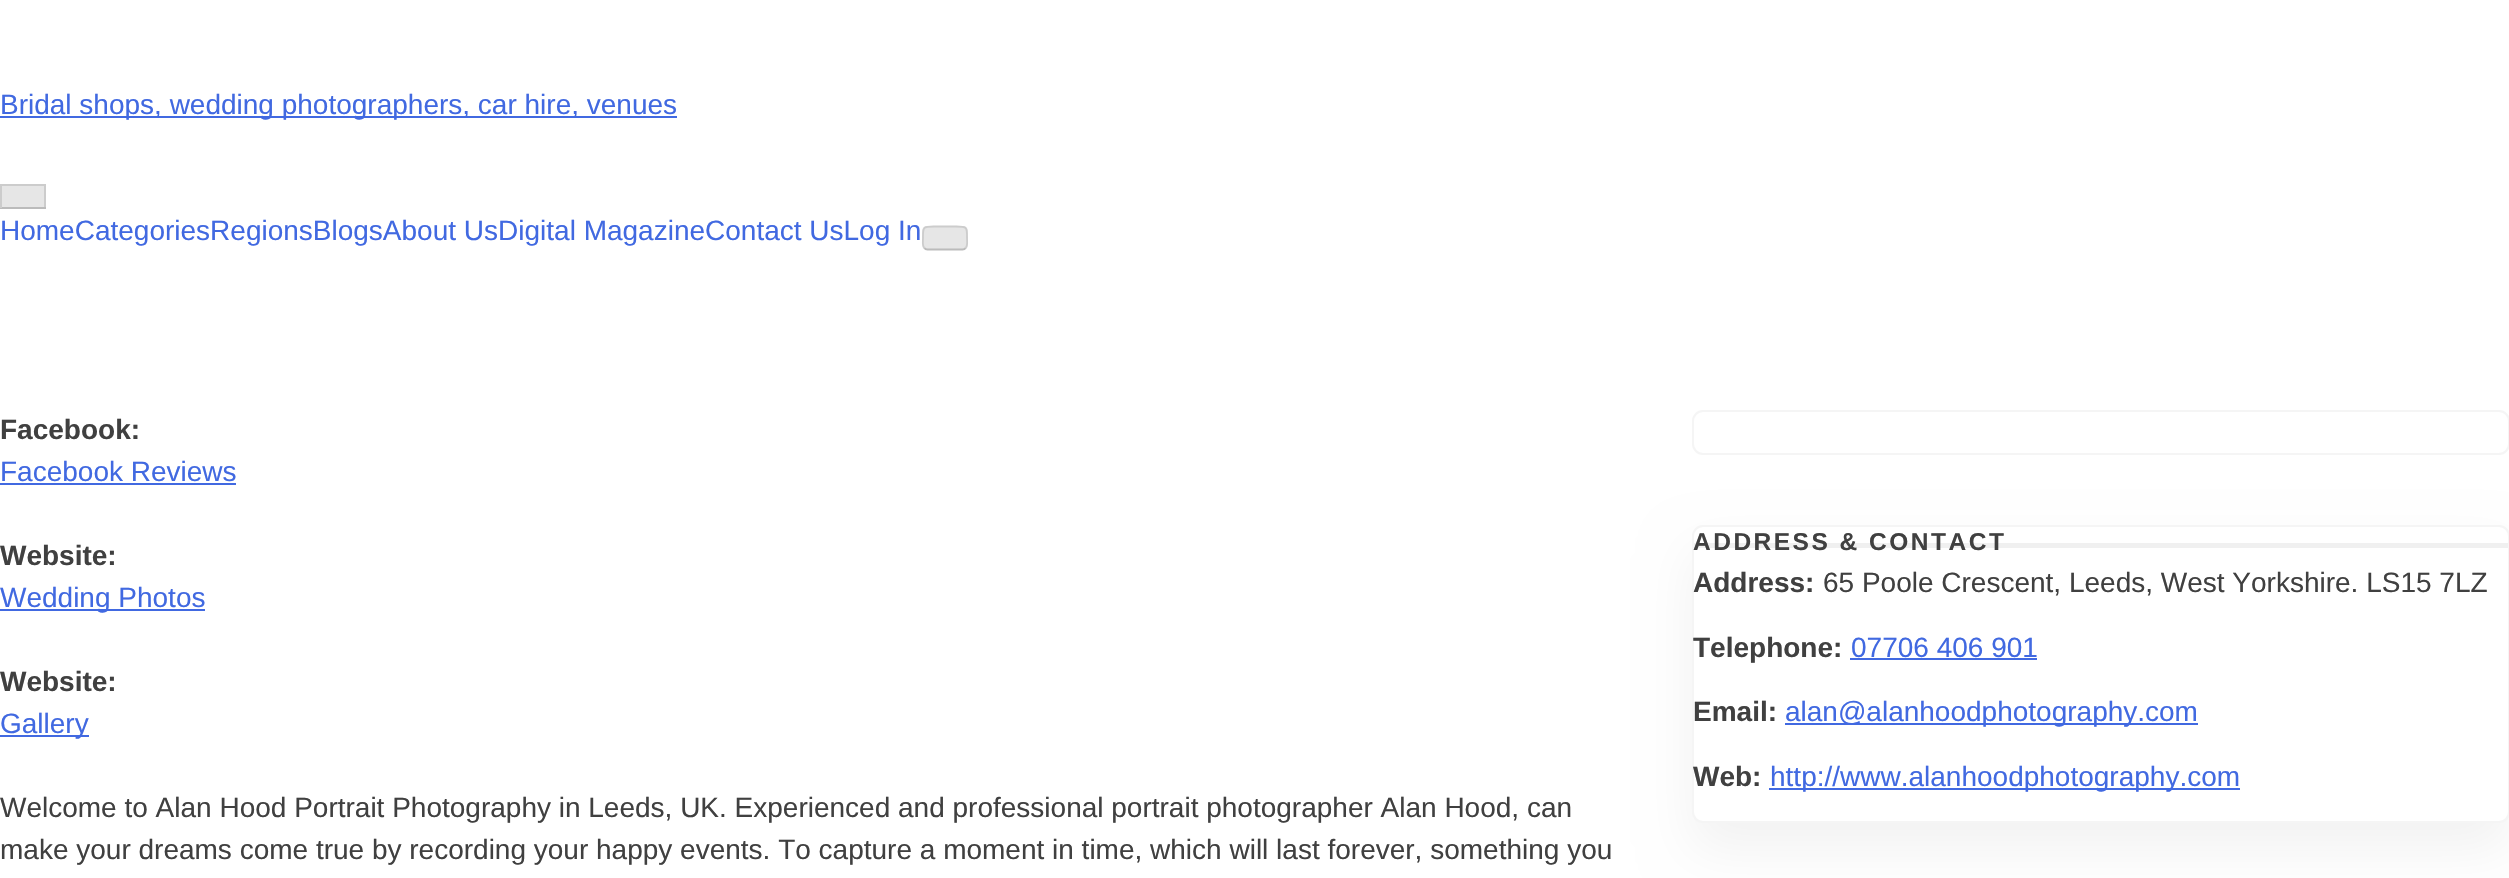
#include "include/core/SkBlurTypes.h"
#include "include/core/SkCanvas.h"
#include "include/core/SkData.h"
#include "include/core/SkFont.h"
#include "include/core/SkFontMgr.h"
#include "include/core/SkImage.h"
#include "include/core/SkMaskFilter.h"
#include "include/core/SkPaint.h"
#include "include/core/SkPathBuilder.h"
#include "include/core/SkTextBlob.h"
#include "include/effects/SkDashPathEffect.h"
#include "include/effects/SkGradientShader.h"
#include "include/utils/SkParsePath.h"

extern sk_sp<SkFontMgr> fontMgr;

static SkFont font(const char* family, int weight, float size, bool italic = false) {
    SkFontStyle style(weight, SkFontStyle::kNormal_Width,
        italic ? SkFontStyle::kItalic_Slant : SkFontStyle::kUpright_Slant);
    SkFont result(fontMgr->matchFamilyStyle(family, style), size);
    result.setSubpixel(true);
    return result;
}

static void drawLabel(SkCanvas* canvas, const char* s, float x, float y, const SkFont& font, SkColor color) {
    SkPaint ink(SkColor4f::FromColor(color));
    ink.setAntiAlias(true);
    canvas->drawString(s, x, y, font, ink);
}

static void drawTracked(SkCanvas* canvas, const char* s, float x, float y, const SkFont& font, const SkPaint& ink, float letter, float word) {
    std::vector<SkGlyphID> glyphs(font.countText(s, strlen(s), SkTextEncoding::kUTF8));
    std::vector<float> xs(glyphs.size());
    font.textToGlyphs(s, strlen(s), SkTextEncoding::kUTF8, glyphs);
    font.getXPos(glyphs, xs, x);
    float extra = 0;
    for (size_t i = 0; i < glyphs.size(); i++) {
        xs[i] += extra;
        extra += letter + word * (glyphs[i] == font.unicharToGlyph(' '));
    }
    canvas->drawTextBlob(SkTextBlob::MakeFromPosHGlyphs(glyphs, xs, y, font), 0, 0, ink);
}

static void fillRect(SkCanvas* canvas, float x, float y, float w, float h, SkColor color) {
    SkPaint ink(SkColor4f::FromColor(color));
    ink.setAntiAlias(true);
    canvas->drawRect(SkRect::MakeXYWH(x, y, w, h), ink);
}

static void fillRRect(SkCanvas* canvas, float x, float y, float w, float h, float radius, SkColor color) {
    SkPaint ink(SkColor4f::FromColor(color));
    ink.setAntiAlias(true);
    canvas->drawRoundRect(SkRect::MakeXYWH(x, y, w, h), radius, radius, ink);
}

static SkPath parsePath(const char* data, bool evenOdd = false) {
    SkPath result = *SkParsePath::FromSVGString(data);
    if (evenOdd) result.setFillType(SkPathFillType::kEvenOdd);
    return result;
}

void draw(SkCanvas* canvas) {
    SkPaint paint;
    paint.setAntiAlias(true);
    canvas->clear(0xFFFFFFFF);
    fillRect(canvas, 0, 116, 677, 2, 0xFF4169E1);
    SkFont font1 = font("Liberation Sans", 400, 28);
    drawLabel(canvas, "Bridal shops, wedding photographers, car hire, venues", 0, 114, font1, 0xFF4169E1);
    fillRect(canvas, 2, 186, 42, 21, 0xFFE6E6E6);
    fillRect(canvas, 0, 184, 46, 2, 0xFFCCCCCC);
    fillRect(canvas, 44, 184, 2, 24, 0xFFCCCCCC);
    fillRect(canvas, 0, 207, 46, 2, 0xFFBBBBBB);
    fillRect(canvas, 0, 184, 2, 24, 0xFFCCCCCC);
    drawLabel(canvas, "HomeCategoriesRegionsBlogsAbout UsDigital MagazineContact UsLog In", 0, 240, font1, 0xFF4169E1);
    fillRRect(canvas, 922, 226, 46, 24, 5, 0xFFE6E6E6);
    paint.setStroke(true);
    paint.setStrokeWidth(1.8f);
    paint.setColor(0xFFBBBBBB);
    canvas->drawPath(parsePath("M965.5 248C965 249 963.5 249.5 962.5 249.5H927.5C926.5 249.5 925 249 924.5 248"), paint);
    paint.setColor(0xFFCCCCCC);
    canvas->drawPath(parsePath("M924.5 248C922 245.5 923 241 923 238C923 227.5 922.5 226.5 933.5 226.5H956.5C967.5 226.5 967 227.5 967 238C967 241 968 245.5 965.5 248"), paint);
    SkFont font2 = font("Liberation Sans", 700, 28);
    drawLabel(canvas, "Facebook:", 0, 439, font2, 0xFF404040);
    drawLabel(canvas, "Facebook Reviews", 0, 481, font1, 0xFF4169E1);
    fillRect(canvas, 0, 483, 236, 2, 0xFF4169E1);
    drawLabel(canvas, "Website:", 0, 565, font2, 0xFF404040);
    fillRect(canvas, 0, 609, 205, 2, 0xFF4169E1);
    drawLabel(canvas, "Wedding Photos", 0, 607, font1, 0xFF4169E1);
    drawLabel(canvas, "Website:", 0, 691, font2, 0xFF404040);
    fillRect(canvas, 0, 735, 89, 2, 0xFF4169E1);
    drawLabel(canvas, "Gallery", 0, 733, font1, 0xFF4169E1);
    drawLabel(canvas, "Welcome to Alan Hood Portrait Photography in Leeds, UK. Experienced and professional portrait photographer Alan Hood, can", 0, 817, font1, 0xFF404040);
    drawLabel(canvas, "make your dreams come true by recording your happy events. To capture a moment in time, which will last forever, something you", 0, 859, font1, 0xFF404040);
    paint.setStrokeWidth(2);
    paint.setColor(0xFFF5F5F5);
    canvas->drawRoundRect(SkRect::MakeXYWH(1693, 411, 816, 43), 10, 10, paint);
    paint.setStroke(false);
    paint.setColor(0x0D000000);
    paint.setMaskFilter(SkMaskFilter::MakeBlur(kNormal_SkBlurStyle, 26));
    canvas->drawRoundRect(SkRect::MakeXYWH(1692, 551, 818, 298), 11, 11, paint);
    paint.setMaskFilter(nullptr);
    paint.setColor(0xFFFFFFFF);
    canvas->drawRoundRect(SkRect::MakeXYWH(1693, 526, 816, 296), 10, 10, paint);
    paint.setStroke(true);
    paint.setColor(0xFFF5F5F5);
    canvas->drawRoundRect(SkRect::MakeXYWH(1693, 526, 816, 296), 10, 10, paint);
    fillRect(canvas, 1694, 543, 814, 5, 0xFFF0F0F0);
    SkFont font3 = font("Liberation Sans", 700, 24.5f);
    paint.setStroke(false);
    paint.setColor(0xFF404040);
    drawTracked(canvas, "ADDRESS & CONTACT", 1693, 550, font3, paint, 2.5f, 0);
    drawLabel(canvas, "Address:", 1693, 592, font2, 0xFF404040);
    drawLabel(canvas, "65 Poole Crescent, Leeds, West Yorkshire. LS15 7LZ", 1823, 592, font1, 0xFF404040);
    drawLabel(canvas, "Telephone:", 1693, 657, font2, 0xFF404040);
    drawLabel(canvas, "07706 406 901", 1851, 657, font1, 0xFF4169E1);
    fillRect(canvas, 1850, 658, 187, 2, 0xFF4169E1);
    drawLabel(canvas, "Email:", 1693, 721, font2, 0xFF404040);
    fillRect(canvas, 1785, 723, 413, 2, 0xFF4169E1);
    drawLabel(canvas, "alan@alanhoodphotography.com", 1785, 721, font1, 0xFF4169E1);
    drawLabel(canvas, "Web:", 1693, 786, font2, 0xFF404040);
    fillRect(canvas, 1769, 788, 471, 2, 0xFF4169E1);
    drawLabel(canvas, "http://www.alanhoodphotography.com", 1770, 786, font1, 0xFF4169E1);
}
